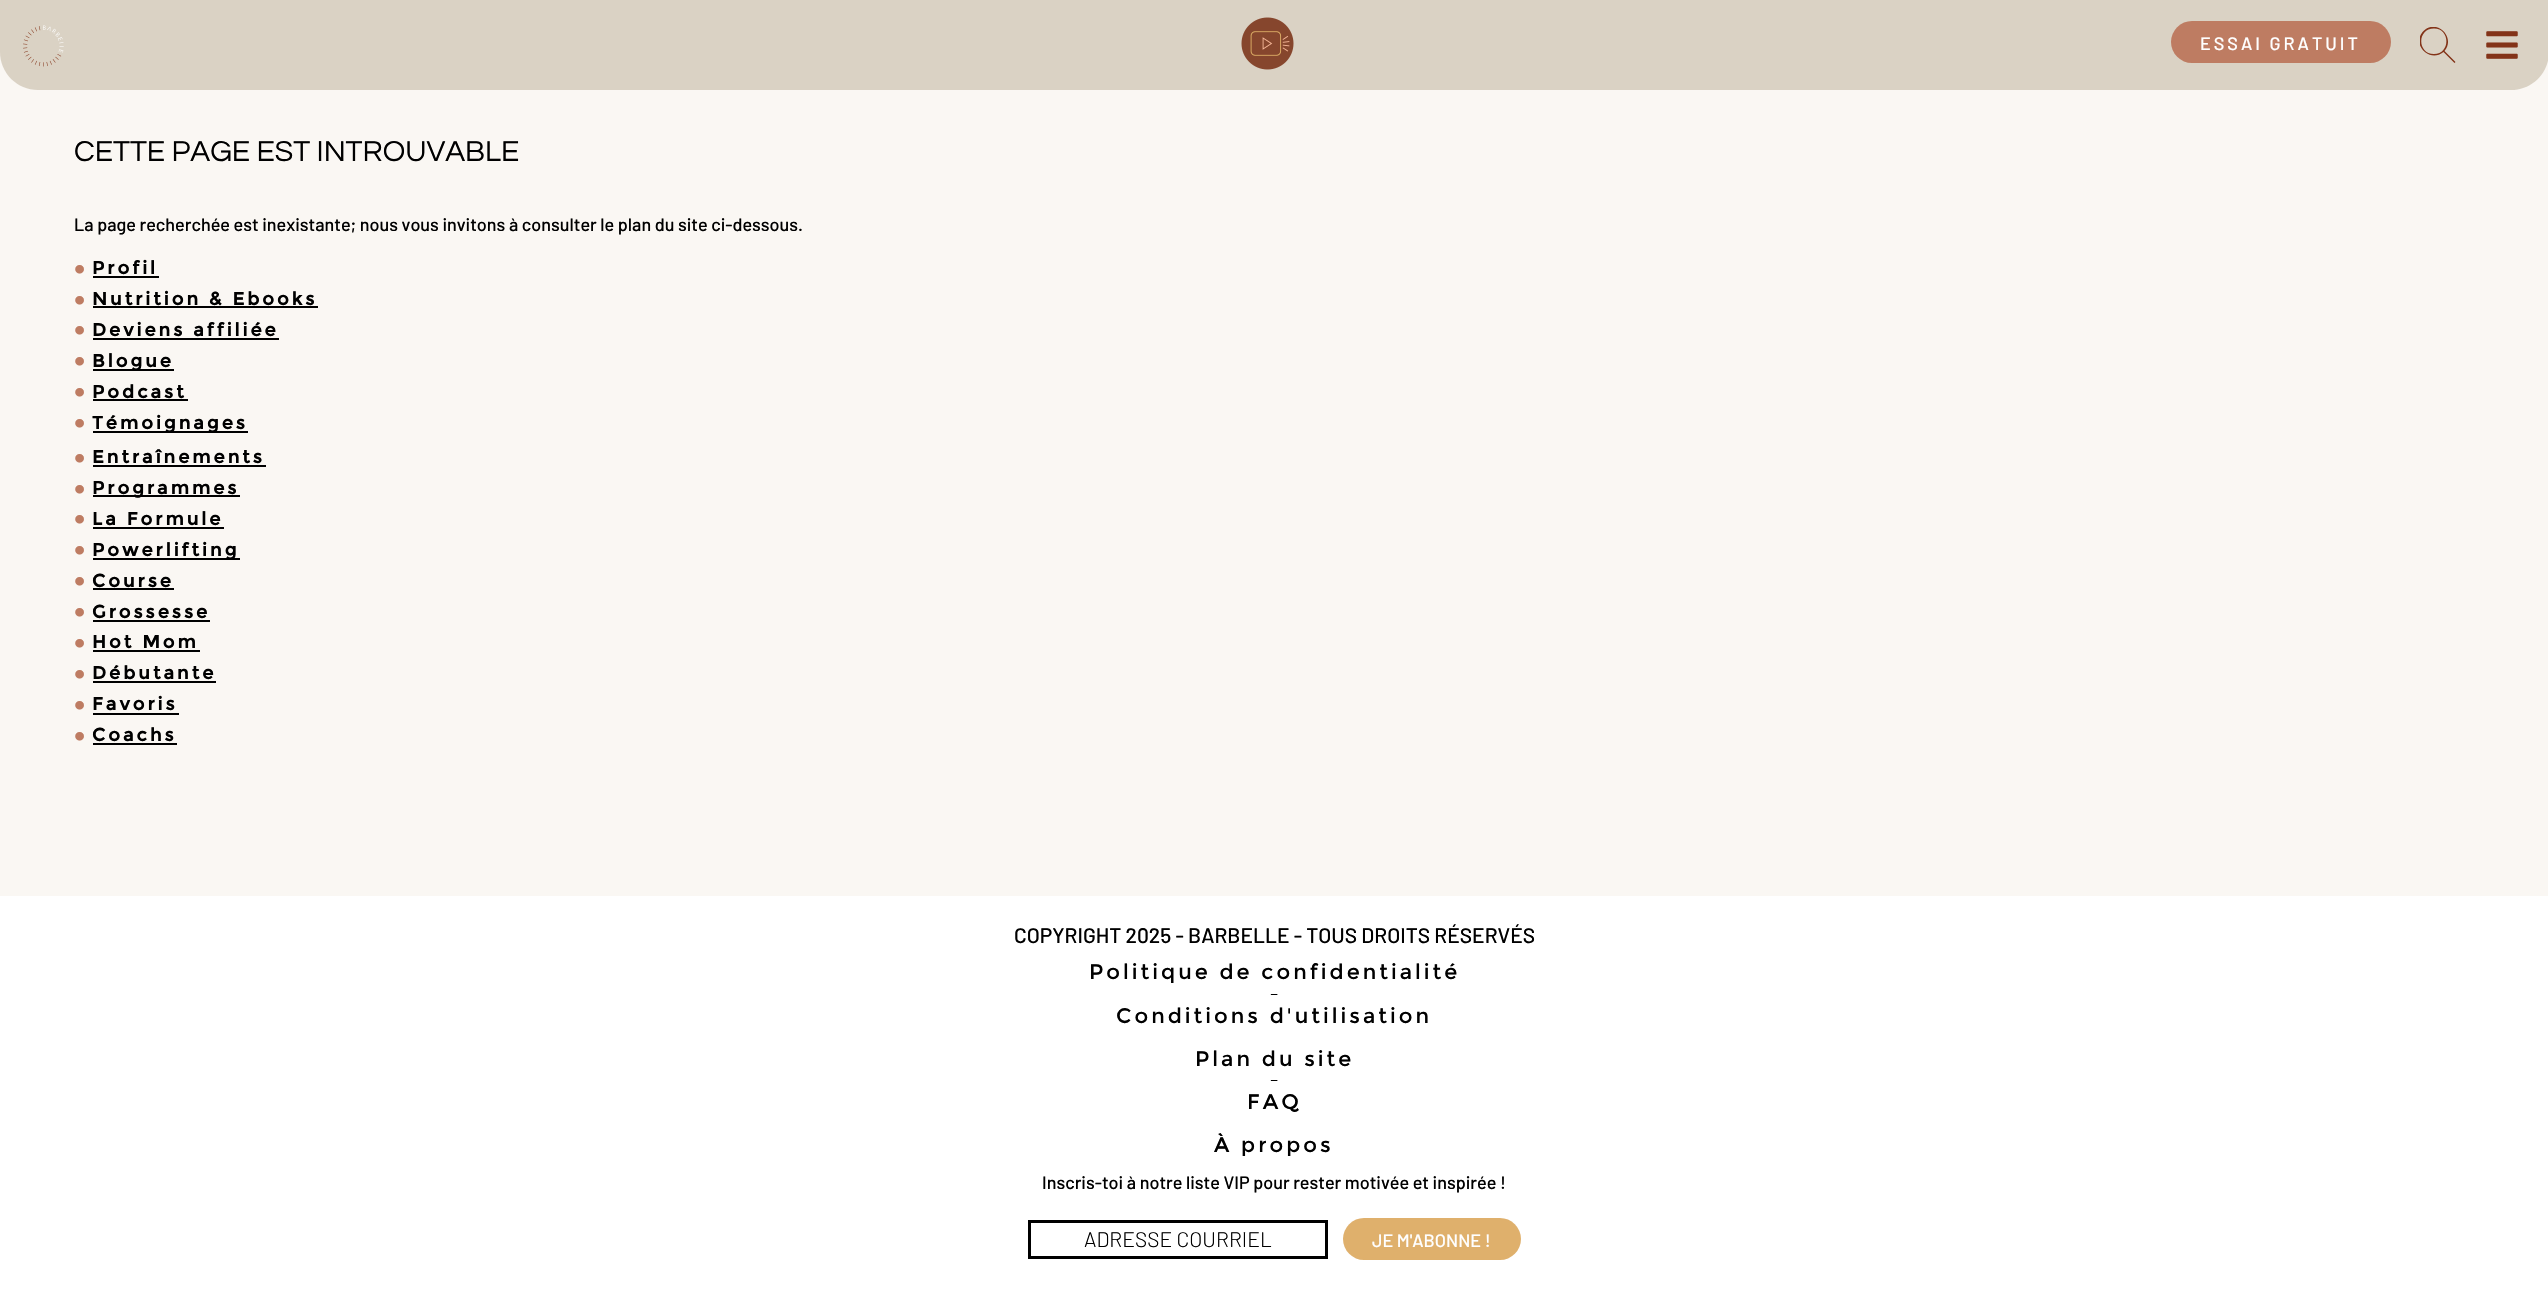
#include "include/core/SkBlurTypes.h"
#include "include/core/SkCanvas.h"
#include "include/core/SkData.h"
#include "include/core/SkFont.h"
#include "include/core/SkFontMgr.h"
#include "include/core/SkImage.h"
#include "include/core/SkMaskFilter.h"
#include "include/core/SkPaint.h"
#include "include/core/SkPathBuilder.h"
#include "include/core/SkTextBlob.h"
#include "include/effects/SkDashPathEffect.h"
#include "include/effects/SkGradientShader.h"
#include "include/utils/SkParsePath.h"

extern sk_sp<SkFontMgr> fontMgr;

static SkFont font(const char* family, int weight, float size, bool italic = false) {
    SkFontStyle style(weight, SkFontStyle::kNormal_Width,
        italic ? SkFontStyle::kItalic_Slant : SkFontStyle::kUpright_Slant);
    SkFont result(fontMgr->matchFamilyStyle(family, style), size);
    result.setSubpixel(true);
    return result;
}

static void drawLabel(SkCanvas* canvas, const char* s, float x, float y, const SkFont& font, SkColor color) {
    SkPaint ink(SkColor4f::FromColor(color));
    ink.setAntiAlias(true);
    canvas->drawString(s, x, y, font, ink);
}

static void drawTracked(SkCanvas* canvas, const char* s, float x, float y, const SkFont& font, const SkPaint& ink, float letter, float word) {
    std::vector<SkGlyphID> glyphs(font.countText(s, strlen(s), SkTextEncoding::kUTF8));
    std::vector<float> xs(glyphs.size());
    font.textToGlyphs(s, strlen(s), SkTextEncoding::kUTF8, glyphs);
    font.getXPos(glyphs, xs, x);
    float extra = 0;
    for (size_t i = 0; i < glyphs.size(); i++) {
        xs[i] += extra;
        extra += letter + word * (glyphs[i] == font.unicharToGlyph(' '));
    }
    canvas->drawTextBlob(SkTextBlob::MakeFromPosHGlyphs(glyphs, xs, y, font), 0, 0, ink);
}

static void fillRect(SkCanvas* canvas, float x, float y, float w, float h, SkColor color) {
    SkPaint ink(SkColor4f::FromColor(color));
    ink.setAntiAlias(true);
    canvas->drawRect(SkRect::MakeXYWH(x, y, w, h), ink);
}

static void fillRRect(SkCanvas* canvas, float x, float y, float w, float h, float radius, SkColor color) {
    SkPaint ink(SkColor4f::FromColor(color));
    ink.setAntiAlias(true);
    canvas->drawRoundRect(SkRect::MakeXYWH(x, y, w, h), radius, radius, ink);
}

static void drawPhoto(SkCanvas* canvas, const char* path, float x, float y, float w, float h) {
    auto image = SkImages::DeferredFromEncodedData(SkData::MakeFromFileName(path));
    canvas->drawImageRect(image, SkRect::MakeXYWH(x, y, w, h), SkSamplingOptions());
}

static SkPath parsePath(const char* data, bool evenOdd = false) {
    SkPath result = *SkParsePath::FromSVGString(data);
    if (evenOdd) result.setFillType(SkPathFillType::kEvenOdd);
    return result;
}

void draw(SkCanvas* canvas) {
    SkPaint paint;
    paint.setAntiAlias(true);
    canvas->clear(0xFFFAF7F3);
    paint.setColor(0xFFDAD2C4);
    canvas->drawPath(parsePath("M0 0H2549V52C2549 73 2532 90 2511 90H38C17 90 0 73 0 52Z"), paint);
    drawPhoto(canvas, "assets/img1.png", 23, 25, 41, 42);
    drawPhoto(canvas, "assets/img2.png", 1241, 17, 53, 53);
    fillRRect(canvas, 2171, 21, 220, 42, 21, 0xFFBE7C62);
    SkFont font1 = font("Barlow", 500, 18);
    paint.setColor(0xFFFFFFFF);
    drawTracked(canvas, "ESSAI GRATUIT", 2200, 50, font1, paint, 3, 0);
    canvas->save();
    canvas->clipRect(SkRect::MakeXYWH(2420, 27, 36, 36));
    paint.setColor(0xFF833318);
    canvas->drawPath(parsePath("M2443.5 52C2430 63.5 2410.5 44.5 2423.5 31C2437 18 2456 37.5 2444.5 51L2455.5 62L2454.5 63ZM2434 28.5C2450.5 28.5 2450.5 54 2434 54C2417 54 2417 28.5 2434 28.5Z", true), paint);
    canvas->restore();
    drawPhoto(canvas, "assets/img3.png", 2486, 31, 32, 28);
    SkFont font2 = font("Questrial", 400, 30);
    drawLabel(canvas, "CETTE PAGE EST INTROUVABLE", 74, 161, font2, 0xFF000000);
    drawLabel(canvas, "La page recherchée est inexistante; nous vous invitons à consulter le plan du site ci-dessous.", 74, 231, font1, 0xFF000000);
    SkFont font3 = font("Barlow", 500, 36);
    drawLabel(canvas, "•", 74, 279, font3, 0xFFBE7C62);
    SkFont font4 = font("Montserrat", 700, 18);
    paint.setColor(0xFF000000);
    drawTracked(canvas, "Profil", 92, 274, font4, paint, 3, 0);
    fillRect(canvas, 93, 276, 66, 2, 0xFF000000);
    drawLabel(canvas, "•", 74, 310, font3, 0xFFBE7C62);
    drawTracked(canvas, "Nutrition & Ebooks", 92, 305, font4, paint, 3, 0);
    fillRect(canvas, 93, 306, 225, 2, 0xFF000000);
    drawLabel(canvas, "•", 74, 340, font3, 0xFFBE7C62);
    drawTracked(canvas, "Deviens affiliée", 92, 336, font4, paint, 3, 0);
    fillRect(canvas, 93, 338, 186, 2, 0xFF000000);
    drawLabel(canvas, "•", 74, 371, font3, 0xFFBE7C62);
    fillRect(canvas, 93, 369, 81, 2, 0xFF000000);
    drawTracked(canvas, "Blogue", 92, 367, font4, paint, 3, 0);
    drawLabel(canvas, "•", 74, 402, font3, 0xFFBE7C62);
    drawTracked(canvas, "Podcast", 92, 398, font4, paint, 3, 0);
    fillRect(canvas, 93, 399, 95, 2, 0xFF000000);
    drawLabel(canvas, "•", 74, 433, font3, 0xFFBE7C62);
    fillRect(canvas, 93, 431, 155, 2, 0xFF000000);
    drawTracked(canvas, "Témoignages", 92, 429, font4, paint, 3, 0);
    drawLabel(canvas, "•", 74, 468, font3, 0xFFBE7C62);
    drawTracked(canvas, "Entraînements", 92, 463, font4, paint, 3, 0);
    fillRect(canvas, 93, 465, 173, 2, 0xFF000000);
    drawLabel(canvas, "•", 74, 499, font3, 0xFFBE7C62);
    fillRect(canvas, 93, 495, 147, 2, 0xFF000000);
    drawTracked(canvas, "Programmes", 92, 494, font4, paint, 3, 0);
    drawLabel(canvas, "•", 74, 529, font3, 0xFFBE7C62);
    drawTracked(canvas, "La Formule", 92, 525, font4, paint, 3, 0);
    fillRect(canvas, 93, 527, 131, 2, 0xFF000000);
    drawLabel(canvas, "•", 74, 560, font3, 0xFFBE7C62);
    fillRect(canvas, 93, 558, 147, 2, 0xFF000000);
    drawTracked(canvas, "Powerlifting", 92, 556, font4, paint, 3, 0);
    drawLabel(canvas, "•", 74, 591, font3, 0xFFBE7C62);
    drawTracked(canvas, "Course", 92, 587, font4, paint, 3, 0);
    fillRect(canvas, 93, 588, 81, 2, 0xFF000000);
    drawLabel(canvas, "•", 74, 622, font3, 0xFFBE7C62);
    drawTracked(canvas, "Grossesse", 92, 618, font4, paint, 3, 0);
    fillRect(canvas, 93, 620, 117, 2, 0xFF000000);
    drawLabel(canvas, "•", 74, 653, font3, 0xFFBE7C62);
    drawTracked(canvas, "Hot Mom", 92, 648, font4, paint, 3, 0);
    fillRect(canvas, 93, 650, 107, 2, 0xFF000000);
    drawLabel(canvas, "•", 74, 684, font3, 0xFFBE7C62);
    drawTracked(canvas, "Débutante", 92, 679, font4, paint, 3, 0);
    fillRect(canvas, 93, 681, 123, 2, 0xFF000000);
    drawLabel(canvas, "•", 74, 715, font3, 0xFFBE7C62);
    drawTracked(canvas, "Favoris", 92, 710, font4, paint, 3, 0);
    fillRect(canvas, 93, 713, 86, 2, 0xFF000000);
    drawLabel(canvas, "•", 74, 746, font3, 0xFFBE7C62);
    drawTracked(canvas, "Coachs", 92, 741, font4, paint, 3, 0);
    fillRect(canvas, 93, 743, 84, 2, 0xFF000000);
    fillRect(canvas, 0, 896, 2548, 416, 0xFFFFFFFF);
    SkFont font5 = font("Barlow", 500, 21);
    drawLabel(canvas, "COPYRIGHT 2025 - BARBELLE - TOUS DROITS RÉSERVÉS", 1014, 943, font5, 0xFF000000);
    SkFont font6 = font("Montserrat", 400, 21);
    drawTracked(canvas, "Politique de confidentialité", 1089, 979, font6, paint, 3, 0);
    SkFont font7 = font("Barlow", 300, 21);
    drawLabel(canvas, "-", 1270, 1001, font7, 0xFF000000);
    drawTracked(canvas, "Conditions d'utilisation", 1116, 1023, font6, paint, 3, 0);
    drawTracked(canvas, "Plan du site", 1195, 1066, font6, paint, 3, 0);
    drawLabel(canvas, "-", 1270, 1087, font7, 0xFF000000);
    drawTracked(canvas, "FAQ", 1247, 1109, font6, paint, 3, 0);
    drawTracked(canvas, "À propos", 1214, 1152, font6, paint, 3, 0);
    drawLabel(canvas, "Inscris-toi à notre liste VIP pour rester motivée et inspirée !", 1042, 1189, font1, 0xFF000000);
    paint.setStroke(true);
    paint.setStrokeWidth(3);
    canvas->drawRect(SkRect::MakeXYWH(1029.5f, 1221.5f, 297, 36), paint);
    drawLabel(canvas, "ADRESSE COURRIEL", 1084, 1247, font7, 0xFF000000);
    fillRRect(canvas, 1343, 1218, 178, 42, 21, 0xFFDFB06C);
    drawLabel(canvas, "JE M'ABONNE !", 1372, 1247, font1, 0xFFFFFFFF);
}
